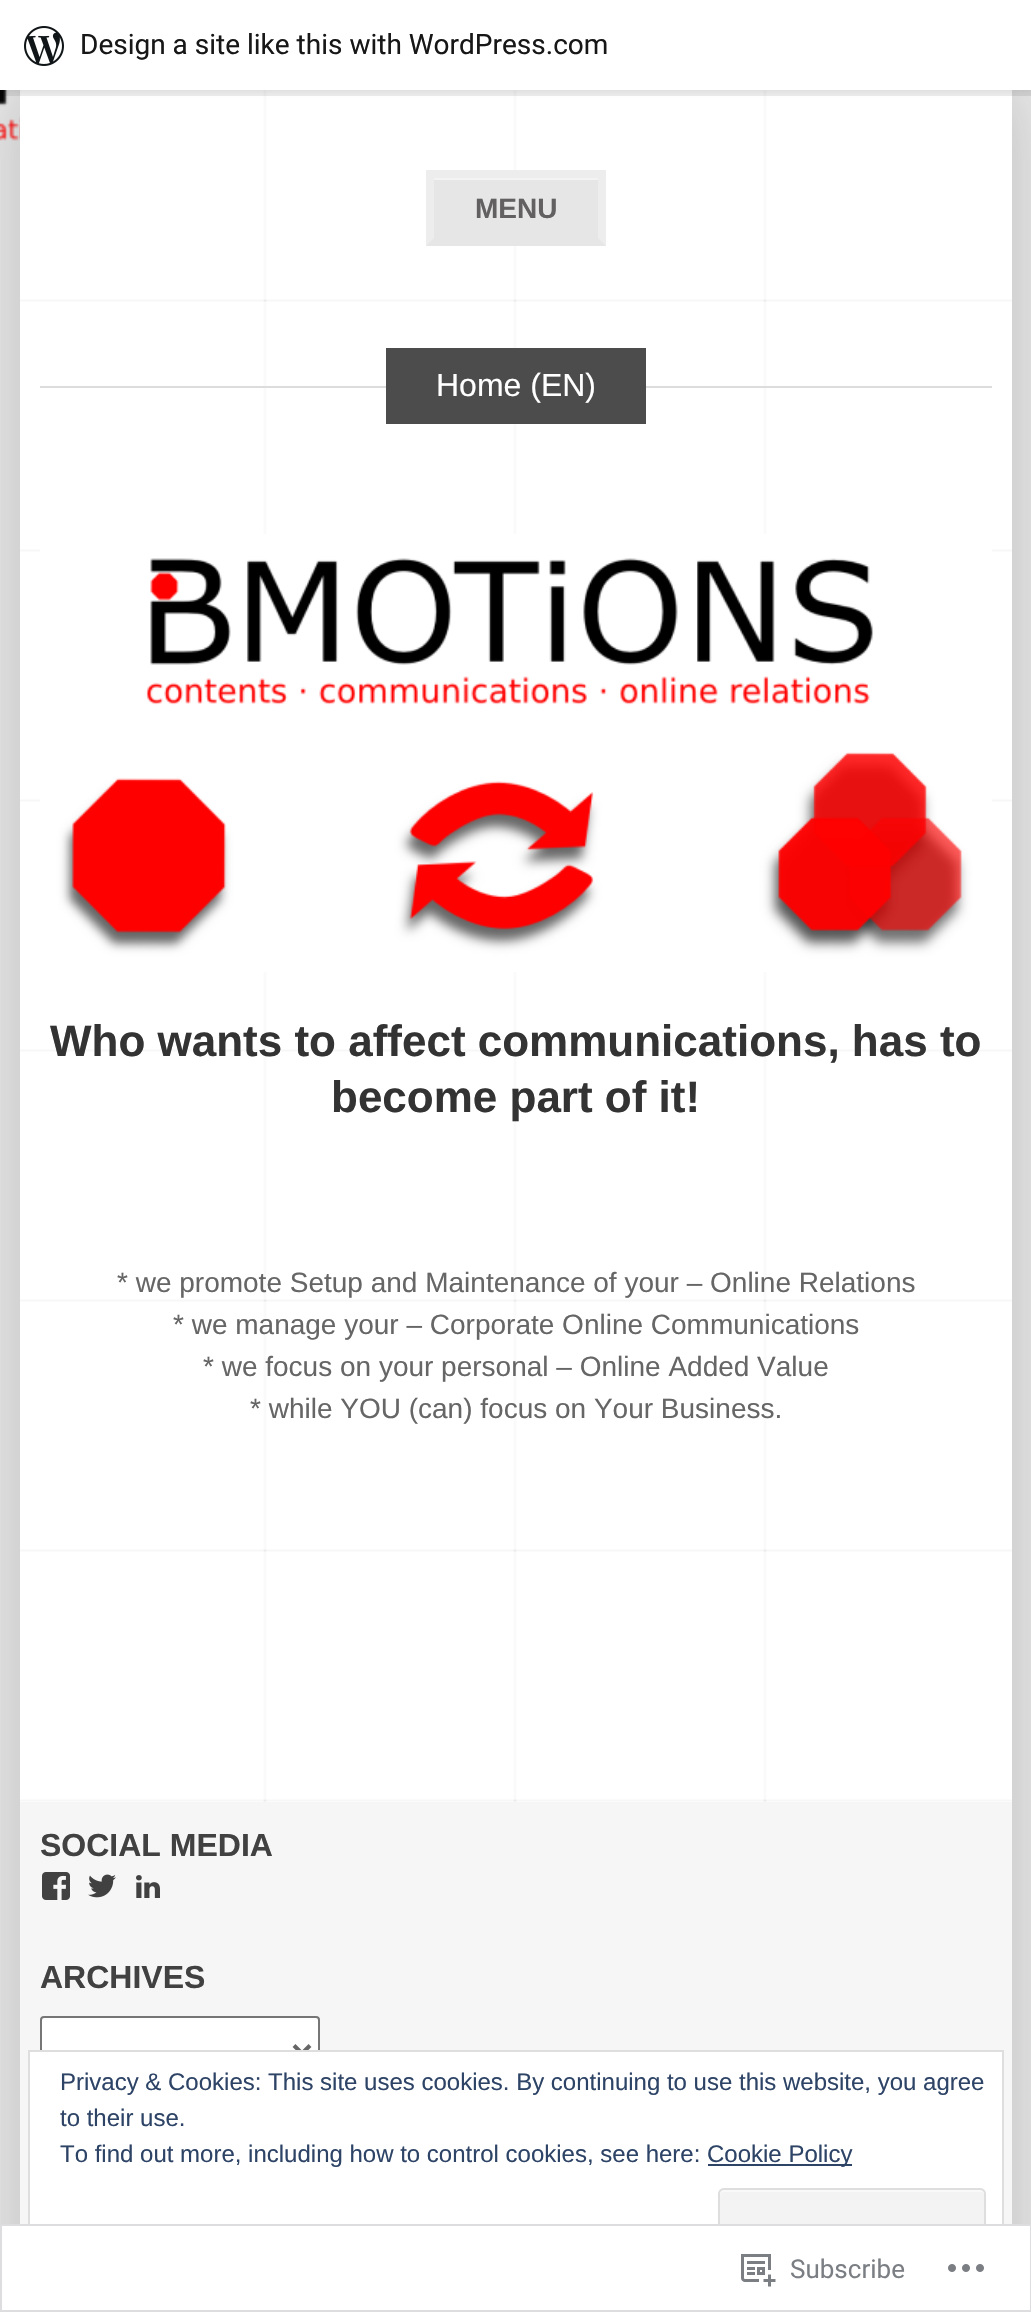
#include "include/core/SkBlurTypes.h"
#include "include/core/SkCanvas.h"
#include "include/core/SkData.h"
#include "include/core/SkFont.h"
#include "include/core/SkFontMgr.h"
#include "include/core/SkImage.h"
#include "include/core/SkMaskFilter.h"
#include "include/core/SkPaint.h"
#include "include/core/SkPathBuilder.h"
#include "include/core/SkTextBlob.h"
#include "include/effects/SkDashPathEffect.h"
#include "include/effects/SkGradientShader.h"
#include "include/utils/SkParsePath.h"

extern sk_sp<SkFontMgr> fontMgr;

static SkFont font(const char* family, int weight, float size, bool italic = false) {
    SkFontStyle style(weight, SkFontStyle::kNormal_Width,
        italic ? SkFontStyle::kItalic_Slant : SkFontStyle::kUpright_Slant);
    SkFont result(fontMgr->matchFamilyStyle(family, style), size);
    result.setSubpixel(true);
    return result;
}

static void drawLabel(SkCanvas* canvas, const char* s, float x, float y, const SkFont& font, SkColor color) {
    SkPaint ink(SkColor4f::FromColor(color));
    ink.setAntiAlias(true);
    canvas->drawString(s, x, y, font, ink);
}

static void fillRect(SkCanvas* canvas, float x, float y, float w, float h, SkColor color) {
    SkPaint ink(SkColor4f::FromColor(color));
    ink.setAntiAlias(true);
    canvas->drawRect(SkRect::MakeXYWH(x, y, w, h), ink);
}

static void fillRRect(SkCanvas* canvas, float x, float y, float w, float h, float radius, SkColor color) {
    SkPaint ink(SkColor4f::FromColor(color));
    ink.setAntiAlias(true);
    canvas->drawRoundRect(SkRect::MakeXYWH(x, y, w, h), radius, radius, ink);
}

static void drawPhoto(SkCanvas* canvas, const char* path, float x, float y, float w, float h) {
    auto image = SkImages::DeferredFromEncodedData(SkData::MakeFromFileName(path));
    canvas->drawImageRect(image, SkRect::MakeXYWH(x, y, w, h), SkSamplingOptions());
}

static SkPath parsePath(const char* data, bool evenOdd = false) {
    SkPath result = *SkParsePath::FromSVGString(data);
    if (evenOdd) result.setFillType(SkPathFillType::kEvenOdd);
    return result;
}

void draw(SkCanvas* canvas) {
    SkPaint paint;
    paint.setAntiAlias(true);
    canvas->clear(0xFFE6E6E6);
    drawPhoto(canvas, "assets/img1.png", 0, 90, 20, 51);
    paint.setColor(0x4D646464);
    paint.setMaskFilter(SkMaskFilter::MakeBlur(kNormal_SkBlurStyle, 30));
    canvas->drawRect(SkRect::MakeXYWH(20, 90, 992, 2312), paint);
    paint.setMaskFilter(nullptr);
    drawPhoto(canvas, "assets/img3.png", 20, 90, 992, 1712);
    paint.setColor(0x0D000000);
    paint.setMaskFilter(SkMaskFilter::MakeBlur(kNormal_SkBlurStyle, 2));
    canvas->drawRect(SkRect::MakeXYWH(0, 2, 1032, 90), paint);
    paint.setMaskFilter(nullptr);
    paint.setColor(0x14000000);
    canvas->drawPath(parsePath("M2 90V96H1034V6H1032V90Z"), paint);
    fillRect(canvas, 0, 0, 1031, 90, 0xFFFFFFFF);
    drawPhoto(canvas, "assets/img2.png", 24, 26, 40, 40);
    SkFont font1 = font("Roboto", 400, 28);
    drawLabel(canvas, "Design a site like this with WordPress.com", 80, 54, font1, 0xFF171717);
    fillRect(canvas, 426, 180, 180, 66, 0xFFE6E6E6);
    fillRect(canvas, 434, 178, 164, 2, 0xFFF3F3F3);
    fillRect(canvas, 426, 170, 180, 8, 0xFFEDEDED);
    paint.setColor(0xFFEDEDED);
    canvas->drawPath(parsePath("M606 170V246L598 238V178Z"), paint);
    canvas->drawPath(parsePath("M426 246V170L434 178V238Z"), paint);
    SkFont font2 = font("Liberation Sans", 700, 28);
    drawLabel(canvas, "MENU", 475, 218, font2, 0xFF626060);
    fillRect(canvas, 40, 386, 952, 2, 0xFFDCDCDC);
    fillRect(canvas, 386, 348, 260, 76, 0xFF4C4C4C);
    SkFont font3 = font("Liberation Sans", 400, 32);
    drawLabel(canvas, "Home (EN)", 436, 396, font3, 0xFFFFFFFF);
    drawPhoto(canvas, "assets/img4.png", 40, 534, 952, 438);
    SkFont font4 = font("Liberation Sans", 700, 44);
    drawLabel(canvas, "Who wants to affect communications, has to", 50, 1056, font4, 0xFF333333);
    drawLabel(canvas, "become part of it!", 331, 1112, font4, 0xFF333333);
    SkFont font5 = font("Liberation Sans", 400, 28);
    drawLabel(canvas, "* we promote Setup and Maintenance of your – Online Relations", 117, 1292, font5, 0xFF666666);
    drawLabel(canvas, "* we manage your – Corporate Online Communications", 173, 1334, font5, 0xFF666666);
    drawLabel(canvas, "* we focus on your personal – Online Added Value", 203, 1376, font5, 0xFF666666);
    drawLabel(canvas, "* while YOU (can) focus on Your Business.", 250, 1418, font5, 0xFF666666);
    fillRect(canvas, 20, 1802, 992, 510, 0xFFF6F6F6);
    SkFont font6 = font("Liberation Sans", 700, 32);
    drawLabel(canvas, "SOCIAL MEDIA", 40, 1856, font6, 0xFF414141);
    drawPhoto(canvas, "assets/img5.png", 42, 1872, 28, 28);
    drawPhoto(canvas, "assets/img6.png", 88, 1874, 28, 24);
    drawPhoto(canvas, "assets/img7.png", 136, 1875, 24, 23);
    drawLabel(canvas, "ARCHIVES", 40, 1988, font6, 0xFF414141);
    paint.setColor(0xFFFFFFFF);
    canvas->drawRoundRect(SkRect::MakeXYWH(41, 2017, 278, 66), 3, 3, paint);
    paint.setStroke(true);
    paint.setStrokeWidth(2);
    paint.setColor(0xFF767676);
    canvas->drawRoundRect(SkRect::MakeXYWH(41, 2017, 278, 66), 3, 3, paint);
    paint.setStrokeWidth(4);
    paint.setColor(0xFF666666);
    canvas->drawPath(parsePath("M294 2045.5L302 2053.5L310 2045.5"), paint);
    paint.setStroke(false);
    paint.setColor(0xFFFFFFFF);
    canvas->drawRect(SkRect::MakeXYWH(29, 2051, 974, 232), paint);
    paint.setStroke(true);
    paint.setStrokeWidth(2);
    paint.setColor(0xFFDEDEDE);
    canvas->drawRect(SkRect::MakeXYWH(29, 2051, 974, 232), paint);
    SkFont font7 = font("Liberation Sans", 400, 24);
    drawLabel(canvas, "Privacy & Cookies: This site uses cookies. By continuing to use this website, you agree", 60, 2090, font7, 0xFF2E4467);
    drawLabel(canvas, "to their use.", 60, 2126, font7, 0xFF2E4467);
    drawLabel(canvas, "To find out more, including how to control cookies, see here:", 60, 2162, font7, 0xFF2E4467);
    fillRect(canvas, 708, 2164, 144, 2, 0xFF2E4467);
    drawLabel(canvas, "Cookie Policy", 707, 2162, font7, 0xFF2E4467);
    fillRRect(canvas, 718, 2188, 268, 78, 6, 0xFFF3F3F3);
    paint.setStroke(false);
    paint.setColor(0xFFF9F9F9);
    canvas->drawPath(parsePath("M724 2192H980C982 2192 984 2194 984 2196C984 2193 984 2190 980 2190H723C720 2191 720 2193 720 2196C720 2194 722 2192 724 2192Z"), paint);
    paint.setStroke(true);
    paint.setColor(0xFFDEDEDE);
    canvas->drawRoundRect(SkRect::MakeXYWH(719, 2189, 266, 76), 5, 5, paint);
    fillRect(canvas, 0, 2224, 1031, 88, 0xFAFFFFFF);
    paint.setColor(0xFADCDCDE);
    canvas->drawRect(SkRect::MakeXYWH(1, 2225, 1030, 86), paint);
    drawPhoto(canvas, "assets/img8.png", 741, 2254, 35, 33);
    SkFont font8 = font("Roboto", 400, 26);
    drawLabel(canvas, "Subscribe", 790, 2278, font8, 0xFF7B7F84);
    drawPhoto(canvas, "assets/img9.png", 948, 2264, 36, 8);
}
